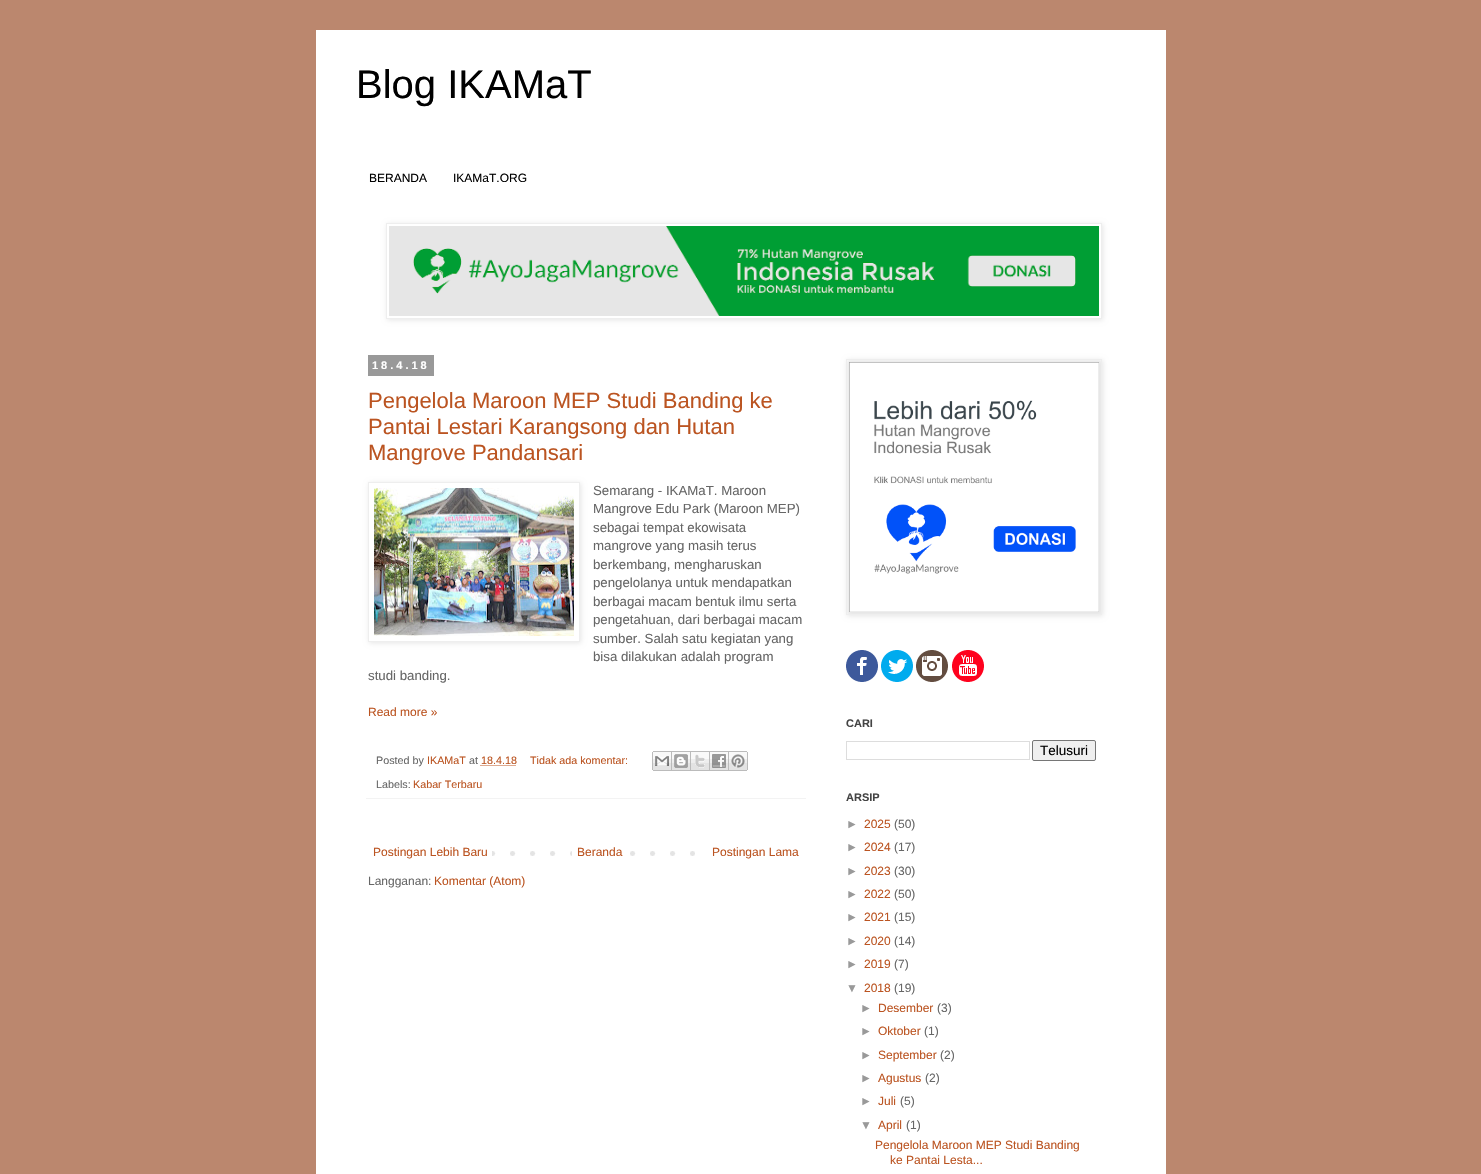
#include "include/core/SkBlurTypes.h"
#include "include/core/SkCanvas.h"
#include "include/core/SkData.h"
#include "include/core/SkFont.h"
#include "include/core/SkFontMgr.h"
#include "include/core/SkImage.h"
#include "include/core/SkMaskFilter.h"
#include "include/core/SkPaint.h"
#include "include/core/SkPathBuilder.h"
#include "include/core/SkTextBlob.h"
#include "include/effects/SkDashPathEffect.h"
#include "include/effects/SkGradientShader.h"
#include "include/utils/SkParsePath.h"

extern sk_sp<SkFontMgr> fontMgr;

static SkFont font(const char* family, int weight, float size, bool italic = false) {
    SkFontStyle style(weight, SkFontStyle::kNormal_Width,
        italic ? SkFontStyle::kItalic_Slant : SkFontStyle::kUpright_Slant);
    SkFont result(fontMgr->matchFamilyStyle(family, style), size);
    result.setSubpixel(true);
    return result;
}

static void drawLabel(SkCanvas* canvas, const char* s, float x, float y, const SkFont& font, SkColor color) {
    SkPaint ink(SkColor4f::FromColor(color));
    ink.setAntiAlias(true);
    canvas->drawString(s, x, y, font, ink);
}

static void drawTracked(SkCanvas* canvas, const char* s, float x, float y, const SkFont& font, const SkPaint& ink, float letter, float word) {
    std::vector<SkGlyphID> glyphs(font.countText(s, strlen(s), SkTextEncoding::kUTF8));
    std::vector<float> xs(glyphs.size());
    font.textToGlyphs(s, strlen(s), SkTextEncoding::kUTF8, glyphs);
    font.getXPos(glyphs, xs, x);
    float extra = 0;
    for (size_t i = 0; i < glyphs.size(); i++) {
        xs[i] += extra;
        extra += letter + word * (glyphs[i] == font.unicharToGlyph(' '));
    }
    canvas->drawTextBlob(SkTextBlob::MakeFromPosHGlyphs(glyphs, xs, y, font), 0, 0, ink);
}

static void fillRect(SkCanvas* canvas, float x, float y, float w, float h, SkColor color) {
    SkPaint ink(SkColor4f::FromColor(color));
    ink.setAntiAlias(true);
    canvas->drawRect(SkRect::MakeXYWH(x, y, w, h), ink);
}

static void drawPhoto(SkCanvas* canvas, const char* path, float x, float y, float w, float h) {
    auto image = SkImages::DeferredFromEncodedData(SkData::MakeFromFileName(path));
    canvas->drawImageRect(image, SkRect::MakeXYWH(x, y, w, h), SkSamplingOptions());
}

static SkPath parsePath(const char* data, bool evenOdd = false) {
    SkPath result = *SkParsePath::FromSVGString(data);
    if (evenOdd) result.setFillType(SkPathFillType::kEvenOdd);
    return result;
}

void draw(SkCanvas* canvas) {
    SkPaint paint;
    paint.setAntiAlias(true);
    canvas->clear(0xFFBB876E);
    fillRect(canvas, 316, 30, 850, 1144, 0xFFFFFFFF);
    SkFont font1 = font("Liberation Sans", 400, 40);
    drawLabel(canvas, "Blog IKAMaT", 356, 98, font1, 0xFF000000);
    SkFont font2 = font("Liberation Sans", 400, 12);
    drawLabel(canvas, "BERANDA", 369, 182, font2, 0xFF000000);
    drawLabel(canvas, "IKAMaT.ORG", 453, 182, font2, 0xFF000000);
    canvas->save();
    canvas->clipPath(parsePath("M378 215H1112V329H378ZM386 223H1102V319H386Z", true), true);
    paint.setColor(0x1A000000);
    paint.setMaskFilter(SkMaskFilter::MakeBlur(kNormal_SkBlurStyle, 2.5f));
    canvas->drawRect(SkRect::MakeXYWH(387, 224, 716, 96), paint);
    paint.setMaskFilter(nullptr);
    canvas->restore();
    paint.setStroke(true);
    paint.setStrokeWidth(1);
    paint.setColor(0xFFEEEEEE);
    canvas->drawRect(SkRect::MakeXYWH(386.5f, 223.5f, 715, 95), paint);
    drawPhoto(canvas, "assets/img1.png", 389, 226, 710, 90);
    fillRect(canvas, 368, 355, 66, 21, 0xFF999999);
    SkFont font3 = font("Liberation Sans", 700, 11);
    paint.setStroke(false);
    paint.setColor(0xFFFFFFFF);
    drawTracked(canvas, "18.4.18", 372, 369, font3, paint, 3, 0);
    SkFont font4 = font("Liberation Sans", 400, 22);
    drawLabel(canvas, "Pengelola Maroon MEP Studi Banding ke", 368, 408, font4, 0xFFBB5421);
    drawLabel(canvas, "Pantai Lestari Karangsong dan Hutan", 368, 434, font4, 0xFFBB5421);
    drawLabel(canvas, "Mangrove Pandansari", 368, 460, font4, 0xFFBB5421);
    canvas->save();
    canvas->clipPath(parsePath("M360 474H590V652H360ZM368 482H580V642H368Z", true), true);
    paint.setColor(0x1A000000);
    paint.setMaskFilter(SkMaskFilter::MakeBlur(kNormal_SkBlurStyle, 2.5f));
    canvas->drawRect(SkRect::MakeXYWH(369, 483, 212, 160), paint);
    paint.setMaskFilter(nullptr);
    canvas->restore();
    paint.setStroke(true);
    paint.setColor(0xFFEEEEEE);
    canvas->drawRect(SkRect::MakeXYWH(368.5f, 482.5f, 211, 159), paint);
    drawPhoto(canvas, "assets/img2.png", 374, 488, 200, 148);
    SkFont font5 = font("Liberation Sans", 400, 13.25f);
    drawLabel(canvas, "Semarang - IKAMaT. Maroon", 593, 495, font5, 0xFF666666);
    drawLabel(canvas, "Mangrove Edu Park (Maroon MEP)", 593, 513, font5, 0xFF666666);
    drawLabel(canvas, "sebagai tempat ekowisata", 593, 532, font5, 0xFF666666);
    drawLabel(canvas, "mangrove yang masih terus", 593, 550, font5, 0xFF666666);
    drawLabel(canvas, "berkembang, mengharuskan", 593, 569, font5, 0xFF666666);
    drawLabel(canvas, "pengelolanya untuk mendapatkan", 593, 587, font5, 0xFF666666);
    drawLabel(canvas, "berbagai macam bentuk ilmu serta", 593, 606, font5, 0xFF666666);
    drawLabel(canvas, "pengetahuan, dari berbagai macam", 593, 624, font5, 0xFF666666);
    drawLabel(canvas, "sumber. Salah satu kegiatan yang", 593, 643, font5, 0xFF666666);
    drawLabel(canvas, "bisa dilakukan adalah program", 593, 661, font5, 0xFF666666);
    drawLabel(canvas, "studi banding.", 368, 680, font5, 0xFF666666);
    drawLabel(canvas, "Read more »", 368, 716, font2, 0xFFBB5421);
    fillRect(canvas, 366, 798, 440, 1, 0xFFF3F3F3);
    SkFont font6 = font("Liberation Sans", 400, 10.75f);
    drawLabel(canvas, "Posted by", 376, 764, font6, 0xFF666666);
    drawLabel(canvas, "IKAMaT", 427, 764, font6, 0xFFBB5421);
    drawLabel(canvas, "at", 469, 764, font6, 0xFF666666);
    drawLabel(canvas, "18.4.18", 481, 764, font6, 0xFFBB5421);
    paint.setColor(0xFFBB5421);
    paint.setPathEffect(SkDashPathEffect::Make({{1, 1}}, 0));
    canvas->drawPath(parsePath("M480.5 765.5H516.5"), paint);
    paint.setPathEffect(nullptr);
    drawLabel(canvas, "Tidak ada komentar:", 530, 764, font6, 0xFFBB5421);
    drawPhoto(canvas, "assets/img3.png", 652, 751, 20, 20);
    drawPhoto(canvas, "assets/img4.png", 672, 751, 19, 20);
    drawPhoto(canvas, "assets/img5.png", 691, 751, 19, 20);
    drawPhoto(canvas, "assets/img6.png", 710, 751, 19, 20);
    drawPhoto(canvas, "assets/img7.png", 729, 751, 19, 20);
    drawLabel(canvas, "Labels:", 376, 788, font6, 0xFF666666);
    drawLabel(canvas, "Kabar Terbaru", 413, 788, font6, 0xFFBB5421);
    drawPhoto(canvas, "assets/img8.png", 492, 851, 203, 5);
    drawLabel(canvas, "Postingan Lebih Baru", 373, 856, font2, 0xFFBB5421);
    fillRect(canvas, 572, 851, 44, 5, 0xFFFFFFFF);
    drawLabel(canvas, "Beranda", 577, 856, font2, 0xFFBB5421);
    drawLabel(canvas, "Postingan Lama", 712, 856, font2, 0xFFBB5421);
    drawLabel(canvas, "Langganan:", 368, 885, font2, 0xFF666666);
    drawLabel(canvas, "Komentar (Atom)", 434, 885, font2, 0xFFBB5421);
    paint.setStroke(false);
    paint.setColor(0x1A000000);
    paint.setMaskFilter(SkMaskFilter::MakeBlur(kNormal_SkBlurStyle, 2.5f));
    canvas->drawRect(SkRect::MakeXYWH(847, 360, 256, 256), paint);
    paint.setMaskFilter(nullptr);
    paint.setStroke(true);
    paint.setColor(0xFFEEEEEE);
    canvas->drawRect(SkRect::MakeXYWH(846.5f, 359.5f, 255, 255), paint);
    drawPhoto(canvas, "assets/img9.png", 849, 362, 250, 250);
    drawPhoto(canvas, "assets/img10.png", 846, 650, 32, 32);
    drawPhoto(canvas, "assets/img11.png", 881, 650, 32, 32);
    drawPhoto(canvas, "assets/img12.png", 916, 650, 32, 32);
    drawPhoto(canvas, "assets/img13.png", 952, 650, 32, 32);
    drawLabel(canvas, "CARI", 846, 727, font3, 0xFF444444);
    paint.setColor(0xFFDDDDDD);
    canvas->drawRect(SkRect::MakeXYWH(846.5f, 741.5f, 183, 18), paint);
    paint.setStroke(false);
    paint.setColor(0xFFEFEFEF);
    canvas->drawRoundRect(SkRect::MakeXYWH(1032.5f, 740.5f, 63, 20), 1.5f, 1.5f, paint);
    paint.setStroke(true);
    paint.setColor(0xFF767676);
    canvas->drawRoundRect(SkRect::MakeXYWH(1032.5f, 740.5f, 63, 20), 1.5f, 1.5f, paint);
    SkFont font7 = font("Liberation Sans", 400, 13.5f);
    drawLabel(canvas, "Telusuri", 1040, 755, font7, 0xFF000000);
    drawLabel(canvas, "ARSIP", 846, 801, font3, 0xFF444444);
    drawLabel(canvas, "►", 846, 828, font2, 0xFF999999);
    drawLabel(canvas, "2025", 864, 828, font2, 0xFFBB5421);
    drawLabel(canvas, "(50)", 894, 828, font2, 0xFF666666);
    drawLabel(canvas, "►", 846, 851, font2, 0xFF999999);
    drawLabel(canvas, "2024", 864, 851, font2, 0xFFBB5421);
    drawLabel(canvas, "(17)", 894, 851, font2, 0xFF666666);
    drawLabel(canvas, "►", 846, 875, font2, 0xFF999999);
    drawLabel(canvas, "2023", 864, 875, font2, 0xFFBB5421);
    drawLabel(canvas, "(30)", 894, 875, font2, 0xFF666666);
    drawLabel(canvas, "►", 846, 898, font2, 0xFF999999);
    drawLabel(canvas, "2022", 864, 898, font2, 0xFFBB5421);
    drawLabel(canvas, "(50)", 894, 898, font2, 0xFF666666);
    drawLabel(canvas, "►", 846, 921, font2, 0xFF999999);
    drawLabel(canvas, "2021", 864, 921, font2, 0xFFBB5421);
    drawLabel(canvas, "(15)", 894, 921, font2, 0xFF666666);
    drawLabel(canvas, "►", 846, 945, font2, 0xFF999999);
    drawLabel(canvas, "2020", 864, 945, font2, 0xFFBB5421);
    drawLabel(canvas, "(14)", 894, 945, font2, 0xFF666666);
    drawLabel(canvas, "►", 846, 968, font2, 0xFF999999);
    drawLabel(canvas, "2019", 864, 968, font2, 0xFFBB5421);
    drawLabel(canvas, "(7)", 894, 968, font2, 0xFF666666);
    drawLabel(canvas, "▼", 846, 992, font2, 0xFF999999);
    drawLabel(canvas, "2018", 864, 992, font2, 0xFFBB5421);
    drawLabel(canvas, "(19)", 894, 992, font2, 0xFF666666);
    drawLabel(canvas, "►", 860, 1012, font2, 0xFF999999);
    drawLabel(canvas, "Desember", 878, 1012, font2, 0xFFBB5421);
    drawLabel(canvas, "(3)", 937, 1012, font2, 0xFF666666);
    drawLabel(canvas, "►", 860, 1035, font2, 0xFF999999);
    drawLabel(canvas, "Oktober", 878, 1035, font2, 0xFFBB5421);
    drawLabel(canvas, "(1)", 924, 1035, font2, 0xFF666666);
    drawLabel(canvas, "►", 860, 1059, font2, 0xFF999999);
    drawLabel(canvas, "September", 878, 1059, font2, 0xFFBB5421);
    drawLabel(canvas, "(2)", 940, 1059, font2, 0xFF666666);
    drawLabel(canvas, "►", 860, 1082, font2, 0xFF999999);
    drawLabel(canvas, "Agustus", 878, 1082, font2, 0xFFBB5421);
    drawLabel(canvas, "(2)", 925, 1082, font2, 0xFF666666);
    drawLabel(canvas, "►", 860, 1105, font2, 0xFF999999);
    drawLabel(canvas, "Juli", 878, 1105, font2, 0xFFBB5421);
    drawLabel(canvas, "(5)", 900, 1105, font2, 0xFF666666);
    drawLabel(canvas, "▼", 860, 1129, font2, 0xFF999999);
    drawLabel(canvas, "April", 878, 1129, font2, 0xFFBB5421);
    drawLabel(canvas, "(1)", 906, 1129, font2, 0xFF666666);
    drawLabel(canvas, "Pengelola Maroon MEP Studi Banding", 875, 1149, font2, 0xFFBB5421);
    drawLabel(canvas, "ke Pantai Lesta...", 890, 1164, font2, 0xFFBB5421);
}
